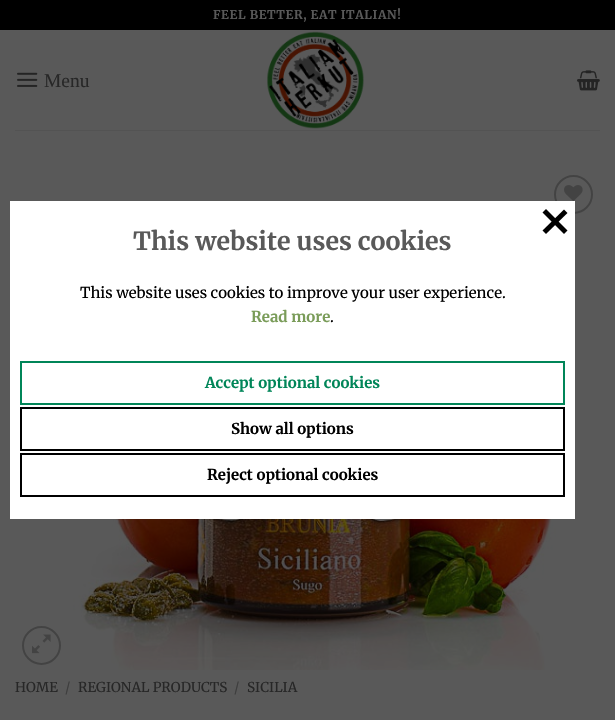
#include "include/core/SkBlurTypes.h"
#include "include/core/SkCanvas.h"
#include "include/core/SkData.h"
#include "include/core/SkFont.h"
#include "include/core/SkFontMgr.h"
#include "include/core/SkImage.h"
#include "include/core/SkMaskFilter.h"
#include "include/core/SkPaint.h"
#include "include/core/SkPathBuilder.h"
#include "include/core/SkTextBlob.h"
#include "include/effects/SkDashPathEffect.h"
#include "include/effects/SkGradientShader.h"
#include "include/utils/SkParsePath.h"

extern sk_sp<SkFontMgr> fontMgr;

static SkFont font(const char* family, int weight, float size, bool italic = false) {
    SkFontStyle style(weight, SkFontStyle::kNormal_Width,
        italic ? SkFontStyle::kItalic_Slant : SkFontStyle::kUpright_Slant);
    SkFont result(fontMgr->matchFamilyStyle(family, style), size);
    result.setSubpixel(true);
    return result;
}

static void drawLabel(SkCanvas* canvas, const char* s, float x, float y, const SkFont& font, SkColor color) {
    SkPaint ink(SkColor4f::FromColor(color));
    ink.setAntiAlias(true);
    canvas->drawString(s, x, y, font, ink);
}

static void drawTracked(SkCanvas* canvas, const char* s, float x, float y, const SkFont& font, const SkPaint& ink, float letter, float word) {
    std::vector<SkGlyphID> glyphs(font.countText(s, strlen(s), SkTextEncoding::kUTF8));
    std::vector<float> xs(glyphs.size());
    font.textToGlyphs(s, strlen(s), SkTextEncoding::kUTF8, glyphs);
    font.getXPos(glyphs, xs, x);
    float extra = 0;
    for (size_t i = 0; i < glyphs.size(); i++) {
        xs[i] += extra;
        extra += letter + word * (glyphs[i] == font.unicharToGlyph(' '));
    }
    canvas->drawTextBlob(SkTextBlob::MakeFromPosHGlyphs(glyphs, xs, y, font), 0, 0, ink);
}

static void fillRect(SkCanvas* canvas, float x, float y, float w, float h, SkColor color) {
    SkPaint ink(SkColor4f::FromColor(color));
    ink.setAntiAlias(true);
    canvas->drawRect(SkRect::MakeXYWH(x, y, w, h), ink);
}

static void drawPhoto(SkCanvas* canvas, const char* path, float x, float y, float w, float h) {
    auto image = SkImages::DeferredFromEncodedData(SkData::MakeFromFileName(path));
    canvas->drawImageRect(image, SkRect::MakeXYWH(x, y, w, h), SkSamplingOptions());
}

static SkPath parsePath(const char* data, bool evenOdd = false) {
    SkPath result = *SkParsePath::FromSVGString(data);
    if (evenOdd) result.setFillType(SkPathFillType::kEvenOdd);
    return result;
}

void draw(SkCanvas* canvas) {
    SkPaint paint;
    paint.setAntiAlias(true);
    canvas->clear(0xFF595959);
    fillRect(canvas, 0, 0, 615, 30, 0xFF000000);
    SkFont font1 = font("Merriweather", 700, 12);
    paint.setColor(0xFF595959);
    drawTracked(canvas, "FEEL BETTER, EAT ITALIAN!", 213, 19, font1, paint, 0.6f, 0);
    drawPhoto(canvas, "assets/img1.png", 17, 72, 21, 15);
    SkFont font2 = font("Liberation Serif", 400, 19.5f);
    drawLabel(canvas, "Menu", 44, 87, font2, 0xFF272727);
    drawPhoto(canvas, "assets/img2.png", 267, 31, 97, 98);
    drawPhoto(canvas, "assets/img3.png", 577, 70, 23, 21);
    fillRect(canvas, 15, 130, 585, 1, 0xFF535353);
    drawPhoto(canvas, "assets/img6.png", 73, 200, 484, 470);
    paint.setStroke(true);
    paint.setStrokeWidth(2);
    paint.setColor(0xFF434343);
    canvas->drawCircle(573.5f, 194.5f, 18.5f, paint);
    drawPhoto(canvas, "assets/img4.png", 564, 185, 19, 16);
    canvas->drawCircle(41.5f, 645.5f, 18.5f, paint);
    drawPhoto(canvas, "assets/img5.png", 32, 634, 19, 20);
    SkFont font3 = font("Merriweather", 400, 13.6f);
    drawLabel(canvas, "HOME", 15, 692, font3, 0xFF272727);
    drawLabel(canvas, "/", 65, 692, font3, 0xFF3E3E3E);
    drawLabel(canvas, "REGIONAL PRODUCTS", 78, 692, font3, 0xFF272727);
    drawLabel(canvas, "/", 234, 692, font3, 0xFF3E3E3E);
    drawLabel(canvas, "SICILIA", 247, 692, font3, 0xFF272727);
    fillRect(canvas, 10, 201, 565, 318, 0xFFFFFFFF);
    paint.setStroke(false);
    paint.setColor(0xFF000000);
    canvas->drawPath(parsePath("M542.5 230.5L564 209.5L567.5 213L546 234Z"), paint);
    canvas->drawPath(parsePath("M546 209L567.5 230.5L564 234L542.5 212.5Z"), paint);
    SkFont font4 = font("Merriweather", 700, 25);
    drawLabel(canvas, "This website uses cookies", 133, 250, font4, 0xFF595959);
    SkFont font5 = font("Merriweather", 400, 15);
    drawLabel(canvas, "This website uses cookies to improve your user experience.", 80, 298, font5, 0xFF000000);
    SkFont font6 = font("Merriweather", 700, 15);
    drawLabel(canvas, "Read more", 251, 322, font6, 0xFF7A9C59);
    drawLabel(canvas, ".", 330, 322, font5, 0xFF000000);
    paint.setStroke(true);
    paint.setColor(0xFF008558);
    canvas->drawRect(SkRect::MakeXYWH(21, 362, 543, 42), paint);
    drawLabel(canvas, "Accept optional cookies", 205, 388, font6, 0xFF008558);
    paint.setColor(0xFF000000);
    canvas->drawRect(SkRect::MakeXYWH(21, 408, 543, 42), paint);
    drawLabel(canvas, "Show all options", 231, 434, font6, 0xFF000000);
    canvas->drawRect(SkRect::MakeXYWH(21, 454, 543, 42), paint);
    drawLabel(canvas, "Reject optional cookies", 207, 480, font6, 0xFF000000);
}
